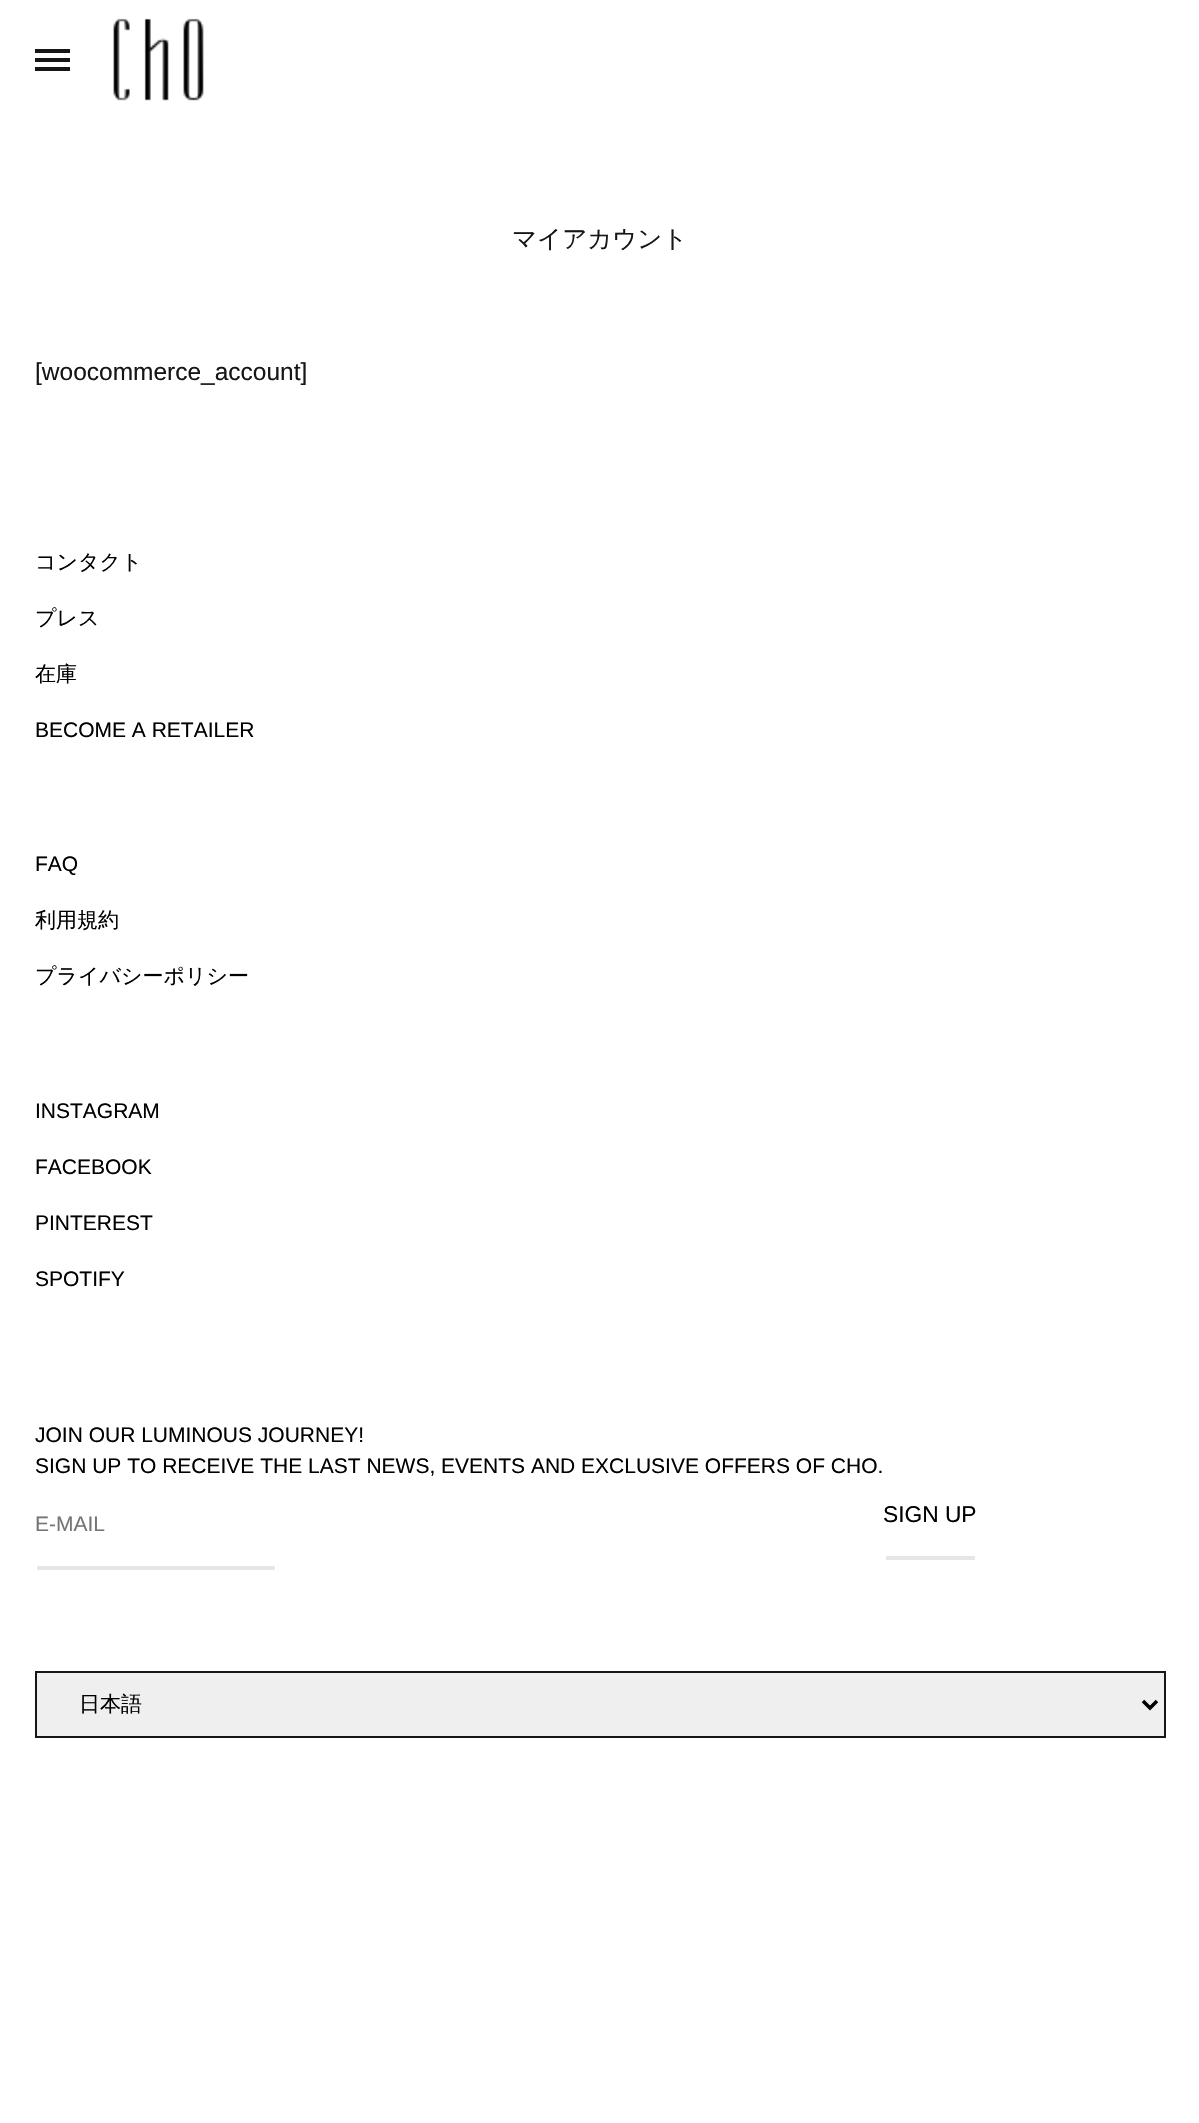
#include "include/core/SkBlurTypes.h"
#include "include/core/SkCanvas.h"
#include "include/core/SkData.h"
#include "include/core/SkFont.h"
#include "include/core/SkFontMgr.h"
#include "include/core/SkImage.h"
#include "include/core/SkMaskFilter.h"
#include "include/core/SkPaint.h"
#include "include/core/SkPathBuilder.h"
#include "include/core/SkTextBlob.h"
#include "include/effects/SkDashPathEffect.h"
#include "include/effects/SkGradientShader.h"
#include "include/utils/SkParsePath.h"

extern sk_sp<SkFontMgr> fontMgr;

static SkFont font(const char* family, int weight, float size, bool italic = false) {
    SkFontStyle style(weight, SkFontStyle::kNormal_Width,
        italic ? SkFontStyle::kItalic_Slant : SkFontStyle::kUpright_Slant);
    SkFont result(fontMgr->matchFamilyStyle(family, style), size);
    result.setSubpixel(true);
    return result;
}

static void drawLabel(SkCanvas* canvas, const char* s, float x, float y, const SkFont& font, SkColor color) {
    SkPaint ink(SkColor4f::FromColor(color));
    ink.setAntiAlias(true);
    canvas->drawString(s, x, y, font, ink);
}

static void fillRect(SkCanvas* canvas, float x, float y, float w, float h, SkColor color) {
    SkPaint ink(SkColor4f::FromColor(color));
    ink.setAntiAlias(true);
    canvas->drawRect(SkRect::MakeXYWH(x, y, w, h), ink);
}

static void drawPhoto(SkCanvas* canvas, const char* path, float x, float y, float w, float h) {
    auto image = SkImages::DeferredFromEncodedData(SkData::MakeFromFileName(path));
    canvas->drawImageRect(image, SkRect::MakeXYWH(x, y, w, h), SkSamplingOptions());
}

static SkPath parsePath(const char* data, bool evenOdd = false) {
    SkPath result = *SkParsePath::FromSVGString(data);
    if (evenOdd) result.setFillType(SkPathFillType::kEvenOdd);
    return result;
}

void draw(SkCanvas* canvas) {
    SkPaint paint;
    paint.setAntiAlias(true);
    canvas->clear(0xFFFFFFFF);
    fillRect(canvas, 35, 58, 35, 4, 0xFF161619);
    fillRect(canvas, 35, 49, 35, 4, 0xFF161619);
    fillRect(canvas, 35, 67, 35, 4, 0xFF161619);
    drawPhoto(canvas, "assets/img1.png", 113, 18, 91, 83);
    SkFont font1 = font("WenQuanYi Zen Hei", 500, 24.5f);
    drawLabel(canvas, "マイアカウント", 512, 247, font1, 0xFF161619);
    SkFont font2 = font("Arimo", 400, 24.5f);
    drawLabel(canvas, "[woocommerce_account]", 35, 380, font2, 0xFF161619);
    SkFont font3 = font("WenQuanYi Zen Hei", 500, 21);
    drawLabel(canvas, "コンタクト", 35, 569, font3, 0xFF000000);
    drawLabel(canvas, "プレス", 35, 625, font3, 0xFF000000);
    drawLabel(canvas, "在庫", 35, 681, font3, 0xFF000000);
    SkFont font4 = font("Arimo", 400, 21);
    drawLabel(canvas, "BECOME A RETAILER", 35, 737, font4, 0xFF000000);
    drawLabel(canvas, "FAQ", 35, 871, font4, 0xFF000000);
    drawLabel(canvas, "利用規約", 35, 927, font3, 0xFF000000);
    drawLabel(canvas, "プライバシーポリシー", 35, 983, font3, 0xFF000000);
    drawLabel(canvas, "INSTAGRAM", 35, 1118, font4, 0xFF000000);
    drawLabel(canvas, "FACEBOOK", 35, 1174, font4, 0xFF000000);
    drawLabel(canvas, "PINTEREST", 35, 1230, font4, 0xFF000000);
    drawLabel(canvas, "SPOTIFY", 35, 1286, font4, 0xFF000000);
    drawLabel(canvas, "JOIN OUR LUMINOUS JOURNEY!", 35, 1442, font4, 0xFF000000);
    drawLabel(canvas, "SIGN UP TO RECEIVE THE LAST NEWS, EVENTS AND EXCLUSIVE OFFERS OF CHO.", 35, 1473, font4, 0xFF000000);
    fillRect(canvas, 37, 1566, 238, 4, 0xFFE3E7E8);
    drawLabel(canvas, "E-MAIL", 35, 1531, font4, 0xFF757575);
    fillRect(canvas, 886, 1556, 89, 4, 0xFFE3E7E8);
    SkFont font5 = font("Arimo", 400, 22.75f);
    drawLabel(canvas, "SIGN UP", 883, 1522, font5, 0xFF000000);
    paint.setColor(0xFFEFEFEF);
    canvas->drawRect(SkRect::MakeXYWH(36, 1672, 1129, 65), paint);
    paint.setStroke(true);
    paint.setStrokeWidth(2);
    paint.setColor(0xFF161619);
    canvas->drawRect(SkRect::MakeXYWH(36, 1672, 1129, 65), paint);
    paint.setStrokeWidth(3.5f);
    paint.setColor(0xFF000000);
    canvas->drawPath(parsePath("M1143 1701L1150 1708L1157 1701"), paint);
    drawLabel(canvas, "日本語", 79, 1711, font3, 0xFF000000);
}
